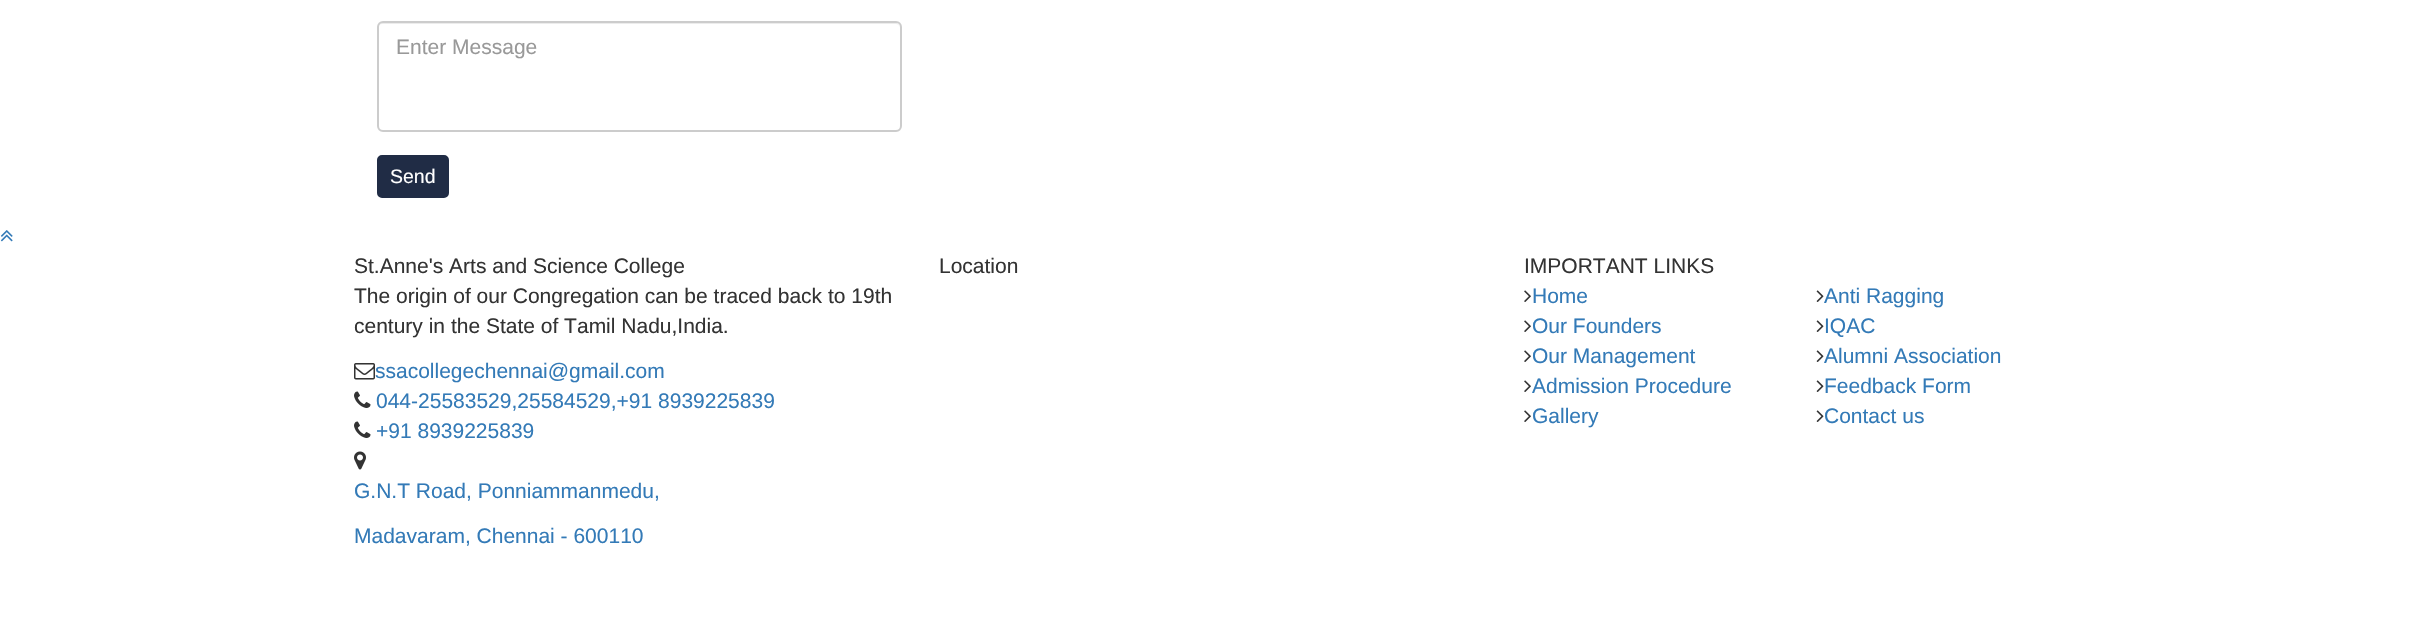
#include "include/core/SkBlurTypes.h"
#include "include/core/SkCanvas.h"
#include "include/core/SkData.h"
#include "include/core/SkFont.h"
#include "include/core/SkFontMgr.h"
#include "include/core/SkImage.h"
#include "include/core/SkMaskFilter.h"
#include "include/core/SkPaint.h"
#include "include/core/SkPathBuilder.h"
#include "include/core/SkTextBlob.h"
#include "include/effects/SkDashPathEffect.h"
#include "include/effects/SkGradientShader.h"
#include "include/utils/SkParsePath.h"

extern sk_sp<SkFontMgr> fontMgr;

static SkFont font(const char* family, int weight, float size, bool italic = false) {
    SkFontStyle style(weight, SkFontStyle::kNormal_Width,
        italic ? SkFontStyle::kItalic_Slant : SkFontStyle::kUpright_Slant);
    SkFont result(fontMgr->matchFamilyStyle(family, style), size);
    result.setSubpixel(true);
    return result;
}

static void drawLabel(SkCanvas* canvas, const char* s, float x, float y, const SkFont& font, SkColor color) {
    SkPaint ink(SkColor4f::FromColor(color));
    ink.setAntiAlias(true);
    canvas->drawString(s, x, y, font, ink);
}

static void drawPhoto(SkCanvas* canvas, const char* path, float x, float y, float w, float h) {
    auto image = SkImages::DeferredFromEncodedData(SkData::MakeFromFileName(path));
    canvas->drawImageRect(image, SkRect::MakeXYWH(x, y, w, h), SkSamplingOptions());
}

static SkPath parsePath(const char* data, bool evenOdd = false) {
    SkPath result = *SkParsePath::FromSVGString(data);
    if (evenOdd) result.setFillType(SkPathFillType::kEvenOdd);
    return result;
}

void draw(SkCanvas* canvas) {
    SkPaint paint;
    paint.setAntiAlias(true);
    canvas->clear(0xFFFFFFFF);
    paint.setColor(0xFFECECEC);
    canvas->drawPath(parsePath("M382 24H896C898 24 900 26 900 28C900 25 898 23 895 23H383C380 23 378 25 378 28C378 26 380 24 382 24Z"), paint);
    paint.setStroke(true);
    paint.setStrokeWidth(2);
    paint.setColor(0xFFCCCCCC);
    canvas->drawRoundRect(SkRect::MakeXYWH(378, 22, 523, 109), 5, 5, paint);
    SkFont font1 = font("Liberation Sans", 400, 21);
    drawLabel(canvas, "Enter Message", 396, 54, font1, 0xFF999999);
    paint.setStroke(false);
    paint.setColor(0xFF202C45);
    canvas->drawRoundRect(SkRect::MakeXYWH(378, 156, 70, 41), 4, 4, paint);
    paint.setStroke(true);
    canvas->drawRoundRect(SkRect::MakeXYWH(378, 156, 70, 41), 4, 4, paint);
    SkFont font2 = font("Liberation Sans", 400, 19.5f);
    drawLabel(canvas, "Send", 390, 183, font2, 0xFFFFFFFF);
    drawPhoto(canvas, "assets/img1.png", 0, 230, 13, 12);
    drawLabel(canvas, "St.Anne's Arts and Science College", 354, 273, font1, 0xFF333333);
    drawLabel(canvas, "The origin of our Congregation can be traced back to 19th", 354, 303, font1, 0xFF333333);
    drawLabel(canvas, "century in the State of Tamil Nadu,India.", 354, 333, font1, 0xFF333333);
    drawPhoto(canvas, "assets/img2.png", 354, 363, 21, 17);
    drawLabel(canvas, "ssacollegechennai@gmail.com", 375, 378, font1, 0xFF337AB7);
    drawPhoto(canvas, "assets/img3.png", 354, 391, 17, 17);
    drawLabel(canvas, "044-25583529,25584529,+91 8939225839", 376, 408, font1, 0xFF337AB7);
    drawPhoto(canvas, "assets/img3.png", 354, 421, 17, 17);
    drawLabel(canvas, "+91 8939225839", 376, 438, font1, 0xFF337AB7);
    drawPhoto(canvas, "assets/img4.png", 354, 451, 12, 19);
    drawLabel(canvas, "G.N.T Road, Ponniammanmedu,", 354, 498, font1, 0xFF337AB7);
    drawLabel(canvas, "Madavaram, Chennai - 600110", 354, 543, font1, 0xFF337AB7);
    drawLabel(canvas, "Location", 939, 273, font1, 0xFF333333);
    drawLabel(canvas, "IMPORTANT LINKS", 1524, 273, font1, 0xFF333333);
    drawPhoto(canvas, "assets/img5.png", 1524, 290, 7, 12);
    drawLabel(canvas, "Home", 1532, 303, font1, 0xFF337AB7);
    drawPhoto(canvas, "assets/img5.png", 1524, 320, 7, 12);
    drawLabel(canvas, "Our Founders", 1532, 333, font1, 0xFF337AB7);
    drawPhoto(canvas, "assets/img5.png", 1524, 350, 7, 12);
    drawLabel(canvas, "Our Management", 1532, 363, font1, 0xFF337AB7);
    drawPhoto(canvas, "assets/img5.png", 1524, 380, 7, 12);
    drawLabel(canvas, "Admission Procedure", 1532, 393, font1, 0xFF337AB7);
    drawPhoto(canvas, "assets/img5.png", 1524, 410, 7, 12);
    drawLabel(canvas, "Gallery", 1532, 423, font1, 0xFF337AB7);
    drawPhoto(canvas, "assets/img6.png", 1816, 290, 8, 12);
    drawLabel(canvas, "Anti Ragging", 1824, 303, font1, 0xFF337AB7);
    drawPhoto(canvas, "assets/img6.png", 1816, 320, 8, 12);
    drawLabel(canvas, "IQAC", 1824, 333, font1, 0xFF337AB7);
    drawPhoto(canvas, "assets/img6.png", 1816, 350, 8, 12);
    drawLabel(canvas, "Alumni Association", 1824, 363, font1, 0xFF337AB7);
    drawPhoto(canvas, "assets/img6.png", 1816, 380, 8, 12);
    drawLabel(canvas, "Feedback Form", 1824, 393, font1, 0xFF337AB7);
    drawPhoto(canvas, "assets/img6.png", 1816, 410, 8, 12);
    drawLabel(canvas, "Contact us", 1824, 423, font1, 0xFF337AB7);
}
